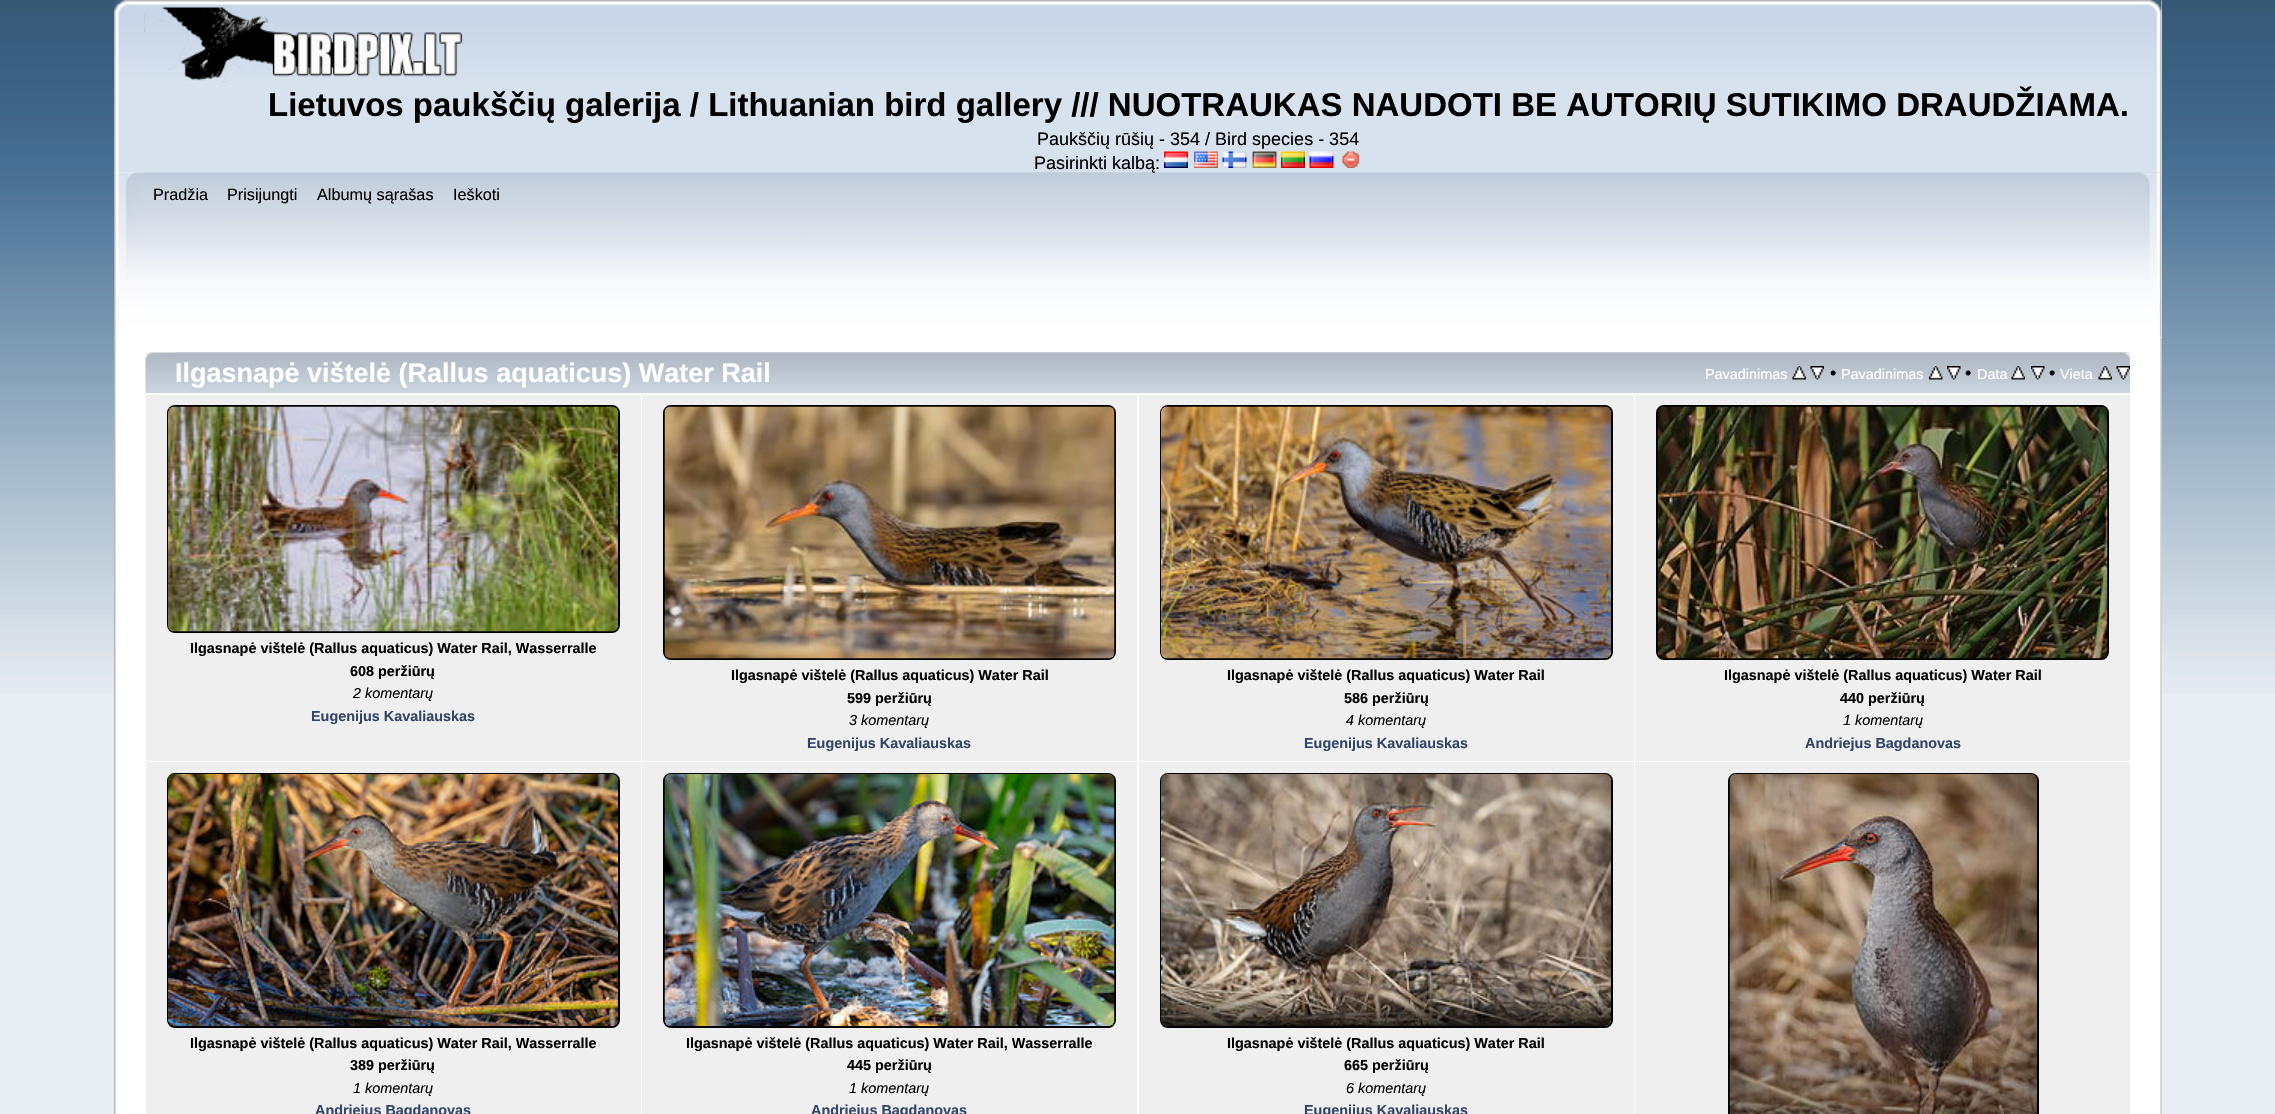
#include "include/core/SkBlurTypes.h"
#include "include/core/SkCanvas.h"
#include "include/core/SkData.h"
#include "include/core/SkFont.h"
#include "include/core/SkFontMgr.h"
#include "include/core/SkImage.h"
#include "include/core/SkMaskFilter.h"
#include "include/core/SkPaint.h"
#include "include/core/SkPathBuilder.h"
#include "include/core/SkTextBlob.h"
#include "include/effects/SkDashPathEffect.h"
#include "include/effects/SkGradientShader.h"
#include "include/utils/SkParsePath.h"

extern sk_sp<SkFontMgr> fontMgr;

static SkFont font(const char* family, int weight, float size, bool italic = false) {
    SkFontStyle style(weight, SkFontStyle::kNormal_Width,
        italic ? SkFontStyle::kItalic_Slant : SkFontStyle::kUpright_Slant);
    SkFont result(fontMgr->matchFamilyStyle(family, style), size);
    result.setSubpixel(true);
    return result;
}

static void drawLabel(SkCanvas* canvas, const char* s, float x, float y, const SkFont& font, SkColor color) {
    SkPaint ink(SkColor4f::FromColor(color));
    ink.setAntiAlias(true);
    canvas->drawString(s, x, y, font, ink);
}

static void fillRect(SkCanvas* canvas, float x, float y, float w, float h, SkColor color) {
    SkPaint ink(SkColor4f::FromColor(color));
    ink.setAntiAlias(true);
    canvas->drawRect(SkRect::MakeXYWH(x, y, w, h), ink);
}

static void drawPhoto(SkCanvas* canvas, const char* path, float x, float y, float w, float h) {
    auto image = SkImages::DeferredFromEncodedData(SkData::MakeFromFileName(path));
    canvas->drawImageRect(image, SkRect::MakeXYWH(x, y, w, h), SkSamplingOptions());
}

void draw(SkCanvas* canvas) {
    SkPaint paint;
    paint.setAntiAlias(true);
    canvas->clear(0xFFE9EEF2);
    drawPhoto(canvas, "assets/img1.png", 0, 0, 2275, 693);
    fillRect(canvas, 114, 0, 2048, 338, 0xFFFEFEFE);
    drawPhoto(canvas, "assets/img2.png", 114, 0, 2048, 173);
    drawPhoto(canvas, "assets/img3.png", 144, 0, 2018, 173);
    drawPhoto(canvas, "assets/img4.png", 144, 7, 319, 76);
    SkFont font1 = font("Liberation Sans", 700, 33);
    drawLabel(canvas, "Lietuvos paukščių galerija / Lithuanian bird gallery /// NUOTRAUKAS NAUDOTI BE AUTORIŲ SUTIKIMO DRAUDŽIAMA.", 268, 116, font1, 0xFF000000);
    SkFont font2 = font("Liberation Sans", 400, 18);
    drawLabel(canvas, "Paukščių rūšių - 354 / Bird species - 354", 1037, 145, font2, 0xFF000000);
    drawPhoto(canvas, "assets/img12.png", 114, 172, 2048, 166);
    drawPhoto(canvas, "assets/img13.png", 144, 172, 2018, 166);
    drawLabel(canvas, "Pasirinkti kalbą:", 1034, 169, font2, 0xFF000000);
    drawPhoto(canvas, "assets/img5.png", 1164, 151, 24, 17);
    drawPhoto(canvas, "assets/img6.png", 1194, 151, 24, 17);
    drawPhoto(canvas, "assets/img7.png", 1222, 151, 25, 17);
    drawPhoto(canvas, "assets/img8.png", 1252, 151, 25, 17);
    drawPhoto(canvas, "assets/img9.png", 1281, 151, 24, 17);
    drawPhoto(canvas, "assets/img10.png", 1309, 151, 25, 17);
    drawPhoto(canvas, "assets/img11.png", 1342, 151, 18, 17);
    SkFont font3 = font("Liberation Sans", 400, 16.25f);
    drawLabel(canvas, "Pradžia", 153, 200, font3, 0xFF000000);
    drawLabel(canvas, "Prisijungti", 227, 200, font3, 0xFF000000);
    drawLabel(canvas, "Albumų sąrašas", 317, 200, font3, 0xFF000000);
    drawLabel(canvas, "Ieškoti", 453, 200, font3, 0xFF000000);
    drawPhoto(canvas, "assets/img14.png", 114, 337, 2048, 777);
    drawPhoto(canvas, "assets/img15.png", 2160, 337, 2, 777);
    drawPhoto(canvas, "assets/img16.png", 145, 352, 1985, 41);
    drawPhoto(canvas, "assets/img17.png", 175, 352, 1955, 7);
    SkFont font4 = font("Liberation Sans", 700, 27);
    drawLabel(canvas, "Ilgasnapė vištelė (Rallus aquaticus) Water Rail", 175, 382, font4, 0xFFFFFFFF);
    SkFont font5 = font("Liberation Sans", 400, 14.4f);
    drawLabel(canvas, "Pavadinimas", 1705, 379, font5, 0xFFFFFFFF);
    drawPhoto(canvas, "assets/img18.png", 1792, 366, 14, 14);
    drawPhoto(canvas, "assets/img19.png", 1810, 366, 14, 14);
    drawLabel(canvas, "•", 1830, 379, font2, 0xFF000000);
    drawLabel(canvas, "Pavadinimas", 1841, 379, font5, 0xFFFFFFFF);
    drawPhoto(canvas, "assets/img20.png", 1929, 366, 14, 14);
    drawPhoto(canvas, "assets/img21.png", 1947, 366, 14, 14);
    drawLabel(canvas, "•", 1965, 379, font2, 0xFF000000);
    drawLabel(canvas, "Data", 1977, 379, font5, 0xFFFFFFFF);
    drawPhoto(canvas, "assets/img18.png", 2011, 366, 14, 14);
    drawPhoto(canvas, "assets/img22.png", 2031, 366, 14, 14);
    drawLabel(canvas, "•", 2049, 379, font2, 0xFF000000);
    drawLabel(canvas, "Vieta", 2060, 379, font5, 0xFFFFFFFF);
    drawPhoto(canvas, "assets/img23.png", 2098, 366, 14, 14);
    drawPhoto(canvas, "assets/img19.png", 2116, 366, 14, 14);
    fillRect(canvas, 146, 395, 495, 366, 0xFFEFEFEF);
    paint.setStroke(true);
    paint.setStrokeWidth(2);
    paint.setColor(0xFF000000);
    canvas->drawRoundRect(SkRect::MakeXYWH(168, 406, 451, 226), 7, 7, paint);
    drawPhoto(canvas, "assets/img24.png", 168, 406, 450, 226);
    SkFont font6 = font("Liberation Sans", 700, 14.4f);
    drawLabel(canvas, "Ilgasnapė vištelė (Rallus aquaticus) Water Rail, Wasserralle", 190, 653, font6, 0xFF000000);
    drawLabel(canvas, "608 peržiūrų", 350, 676, font6, 0xFF000000);
    SkFont font7 = font("Liberation Sans", 400, 14.4f, true);
    drawLabel(canvas, "2 komentarų", 353, 698, font7, 0xFF000000);
    drawLabel(canvas, "Eugenijus Kavaliauskas", 311, 721, font6, 0xFF334466);
    fillRect(canvas, 642, 395, 495, 366, 0xFFEFEFEF);
    canvas->drawRoundRect(SkRect::MakeXYWH(664, 406, 451, 253), 7, 7, paint);
    drawPhoto(canvas, "assets/img25.png", 664, 406, 451, 253);
    drawLabel(canvas, "Ilgasnapė vištelė (Rallus aquaticus) Water Rail", 731, 680, font6, 0xFF000000);
    drawLabel(canvas, "599 peržiūrų", 847, 703, font6, 0xFF000000);
    drawLabel(canvas, "3 komentarų", 849, 725, font7, 0xFF000000);
    drawLabel(canvas, "Eugenijus Kavaliauskas", 807, 748, font6, 0xFF334466);
    fillRect(canvas, 1139, 395, 495, 366, 0xFFEFEFEF);
    canvas->drawRoundRect(SkRect::MakeXYWH(1161, 406, 451, 253), 7, 7, paint);
    drawPhoto(canvas, "assets/img26.png", 1161, 406, 450, 253);
    drawLabel(canvas, "Ilgasnapė vištelė (Rallus aquaticus) Water Rail", 1227, 680, font6, 0xFF000000);
    drawLabel(canvas, "586 peržiūrų", 1344, 703, font6, 0xFF000000);
    drawLabel(canvas, "4 komentarų", 1346, 725, font7, 0xFF000000);
    drawLabel(canvas, "Eugenijus Kavaliauskas", 1304, 748, font6, 0xFF334466);
    fillRect(canvas, 1635, 395, 495, 366, 0xFFEFEFEF);
    canvas->drawRoundRect(SkRect::MakeXYWH(1657, 406, 451, 253), 7, 7, paint);
    drawPhoto(canvas, "assets/img27.png", 1657, 406, 451, 253);
    drawLabel(canvas, "Ilgasnapė vištelė (Rallus aquaticus) Water Rail", 1724, 680, font6, 0xFF000000);
    drawLabel(canvas, "440 peržiūrų", 1840, 703, font6, 0xFF000000);
    drawLabel(canvas, "1 komentarų", 1843, 725, font7, 0xFF000000);
    drawLabel(canvas, "Andriejus Bagdanovas", 1805, 748, font6, 0xFF334466);
    fillRect(canvas, 146, 762, 495, 352, 0xFFEFEFEF);
    canvas->drawRoundRect(SkRect::MakeXYWH(168, 774, 451, 253), 7, 7, paint);
    drawPhoto(canvas, "assets/img28.png", 168, 774, 450, 252);
    drawLabel(canvas, "Ilgasnapė vištelė (Rallus aquaticus) Water Rail, Wasserralle", 190, 1048, font6, 0xFF000000);
    drawLabel(canvas, "389 peržiūrų", 350, 1070, font6, 0xFF000000);
    drawLabel(canvas, "1 komentarų", 353, 1093, font7, 0xFF000000);
    drawLabel(canvas, "Andriejus Bagdanovas", 315, 1115, font6, 0xFF334466);
    fillRect(canvas, 642, 762, 495, 352, 0xFFEFEFEF);
    canvas->drawRoundRect(SkRect::MakeXYWH(664, 774, 451, 253), 7, 7, paint);
    drawPhoto(canvas, "assets/img29.png", 664, 774, 451, 252);
    drawLabel(canvas, "Ilgasnapė vištelė (Rallus aquaticus) Water Rail, Wasserralle", 686, 1048, font6, 0xFF000000);
    drawLabel(canvas, "445 peržiūrų", 847, 1070, font6, 0xFF000000);
    drawLabel(canvas, "1 komentarų", 849, 1093, font7, 0xFF000000);
    drawLabel(canvas, "Andriejus Bagdanovas", 811, 1115, font6, 0xFF334466);
    fillRect(canvas, 1139, 762, 495, 352, 0xFFEFEFEF);
    canvas->drawRoundRect(SkRect::MakeXYWH(1161, 774, 451, 253), 7, 7, paint);
    drawPhoto(canvas, "assets/img30.png", 1161, 774, 450, 252);
    drawLabel(canvas, "Ilgasnapė vištelė (Rallus aquaticus) Water Rail", 1227, 1048, font6, 0xFF000000);
    drawLabel(canvas, "665 peržiūrų", 1344, 1070, font6, 0xFF000000);
    drawLabel(canvas, "6 komentarų", 1346, 1093, font7, 0xFF000000);
    drawLabel(canvas, "Eugenijus Kavaliauskas", 1304, 1115, font6, 0xFF334466);
    fillRect(canvas, 1635, 762, 495, 352, 0xFFEFEFEF);
    canvas->drawRoundRect(SkRect::MakeXYWH(1729, 774, 309, 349), 7, 7, paint);
    drawPhoto(canvas, "assets/img31.png", 1729, 774, 308, 340);
}
